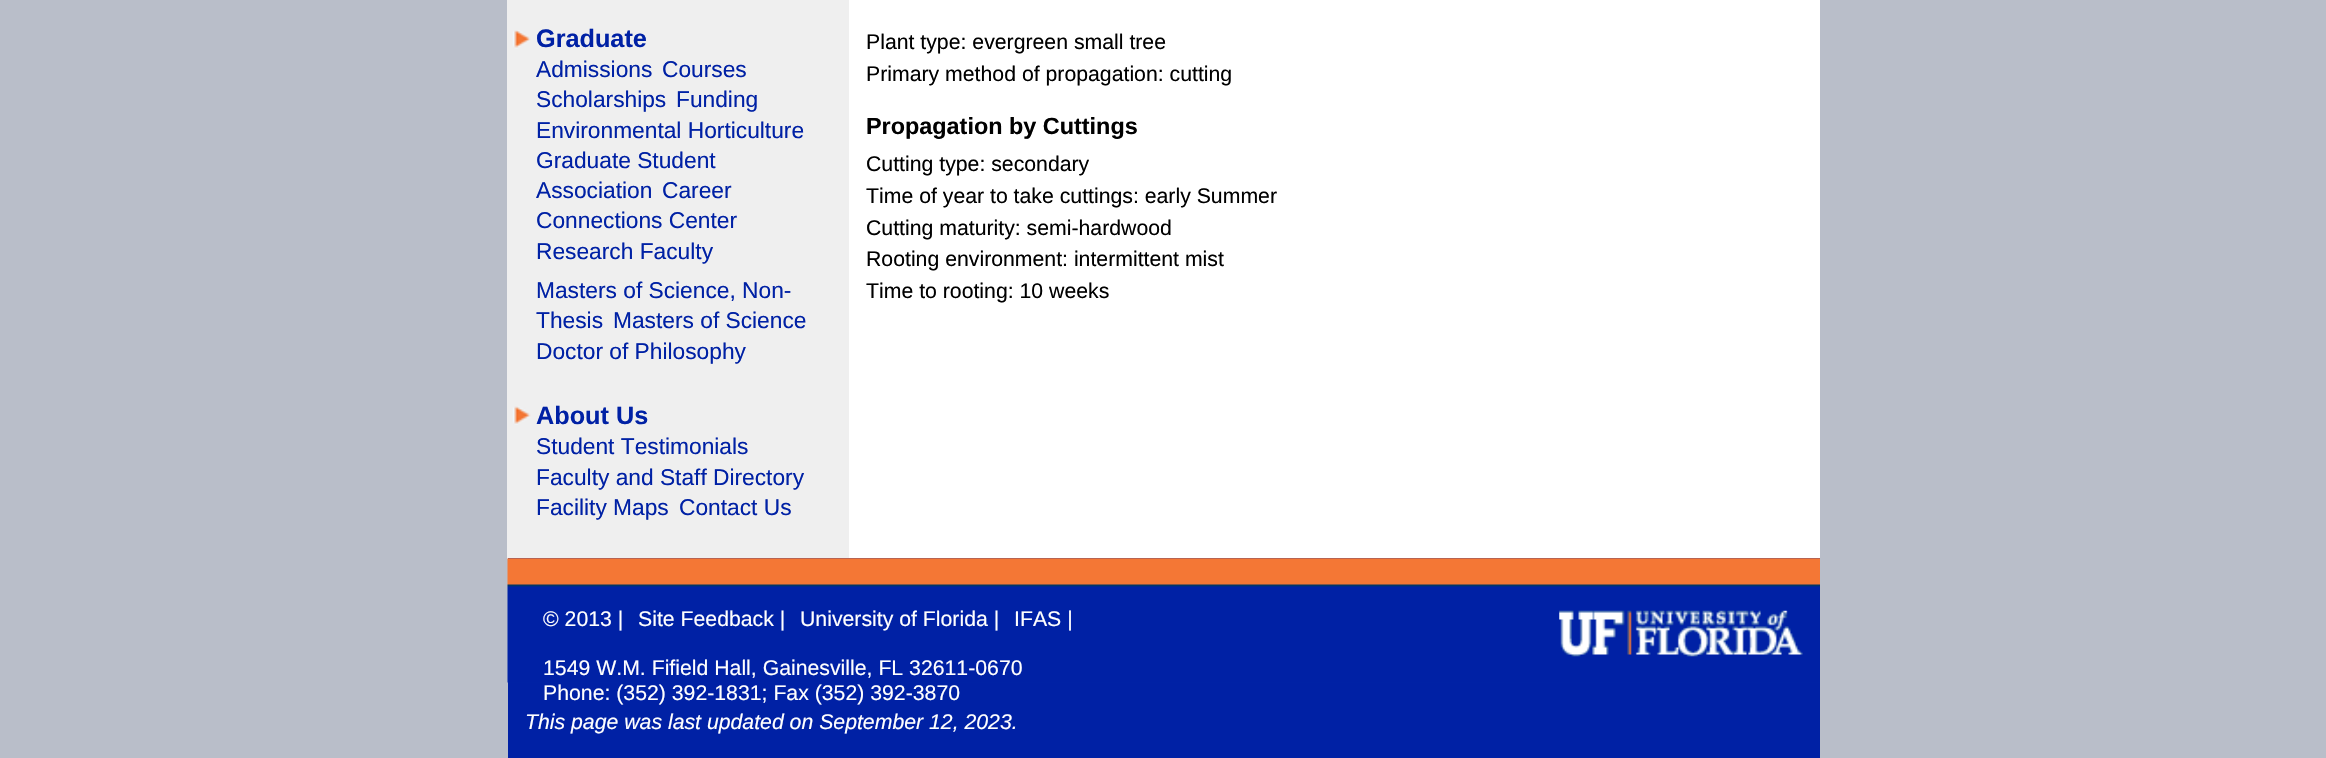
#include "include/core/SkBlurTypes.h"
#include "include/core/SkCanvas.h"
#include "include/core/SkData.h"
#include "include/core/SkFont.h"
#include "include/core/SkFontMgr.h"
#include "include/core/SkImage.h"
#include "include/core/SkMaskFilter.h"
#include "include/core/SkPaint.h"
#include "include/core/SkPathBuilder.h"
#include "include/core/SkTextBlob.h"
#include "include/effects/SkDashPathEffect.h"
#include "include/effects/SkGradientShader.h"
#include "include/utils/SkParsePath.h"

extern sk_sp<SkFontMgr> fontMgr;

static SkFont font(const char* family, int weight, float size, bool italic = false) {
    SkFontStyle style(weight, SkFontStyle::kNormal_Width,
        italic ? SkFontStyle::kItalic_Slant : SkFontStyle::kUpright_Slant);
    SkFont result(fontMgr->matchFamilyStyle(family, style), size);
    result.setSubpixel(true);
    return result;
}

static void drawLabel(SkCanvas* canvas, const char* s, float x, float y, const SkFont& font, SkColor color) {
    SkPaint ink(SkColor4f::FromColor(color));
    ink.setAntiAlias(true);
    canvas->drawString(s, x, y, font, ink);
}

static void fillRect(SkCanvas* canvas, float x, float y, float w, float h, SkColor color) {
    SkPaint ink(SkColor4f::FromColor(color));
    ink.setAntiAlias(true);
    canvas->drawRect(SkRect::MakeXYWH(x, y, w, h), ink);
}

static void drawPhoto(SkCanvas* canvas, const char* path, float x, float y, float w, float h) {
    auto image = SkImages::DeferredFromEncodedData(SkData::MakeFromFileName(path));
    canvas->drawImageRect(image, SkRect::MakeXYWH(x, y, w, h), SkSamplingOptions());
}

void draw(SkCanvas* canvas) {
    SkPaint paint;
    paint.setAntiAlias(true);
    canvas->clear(0xFFB9BEC9);
    fillRect(canvas, 849, 0, 971, 558, 0xFFFFFFFF);
    fillRect(canvas, 507, 0, 342, 559, 0xFFEFEFEF);
    drawPhoto(canvas, "assets/img1.png", 512, 30, 19, 19);
    SkFont font1 = font("Liberation Sans", 700, 25.25f);
    drawLabel(canvas, "Graduate", 536, 47, font1, 0xFF0021A5);
    SkFont font2 = font("Liberation Sans", 400, 22.75f);
    drawLabel(canvas, "Admissions", 536, 77, font2, 0xFF0021A5);
    drawLabel(canvas, "Courses", 662, 77, font2, 0xFF0021A5);
    drawLabel(canvas, "Scholarships", 536, 107, font2, 0xFF0021A5);
    drawLabel(canvas, "Funding", 676, 107, font2, 0xFF0021A5);
    drawLabel(canvas, "Environmental Horticulture", 536, 138, font2, 0xFF0021A5);
    drawLabel(canvas, "Graduate Student", 536, 168, font2, 0xFF0021A5);
    drawLabel(canvas, "Association", 536, 198, font2, 0xFF0021A5);
    drawLabel(canvas, "Career", 662, 198, font2, 0xFF0021A5);
    drawLabel(canvas, "Connections Center", 536, 228, font2, 0xFF0021A5);
    drawLabel(canvas, "Research Faculty", 536, 259, font2, 0xFF0021A5);
    drawLabel(canvas, "Masters of Science, Non-", 536, 298, font2, 0xFF0021A5);
    drawLabel(canvas, "Thesis", 536, 328, font2, 0xFF0021A5);
    drawLabel(canvas, "Masters of Science", 613, 328, font2, 0xFF0021A5);
    drawLabel(canvas, "Doctor of Philosophy", 536, 359, font2, 0xFF0021A5);
    drawPhoto(canvas, "assets/img2.png", 512, 406, 19, 19);
    drawLabel(canvas, "About Us", 536, 424, font1, 0xFF0021A5);
    drawLabel(canvas, "Student Testimonials", 536, 454, font2, 0xFF0021A5);
    drawLabel(canvas, "Faculty and Staff Directory", 536, 485, font2, 0xFF0021A5);
    drawLabel(canvas, "Facility Maps", 536, 515, font2, 0xFF0021A5);
    drawLabel(canvas, "Contact Us", 679, 515, font2, 0xFF0021A5);
    SkFont font3 = font("Liberation Sans", 400, 21.25f);
    drawLabel(canvas, "Plant type: evergreen small tree", 866, 49, font3, 0xFF000000);
    drawLabel(canvas, "Primary method of propagation: cutting", 866, 81, font3, 0xFF000000);
    SkFont font4 = font("Liberation Sans", 700, 23.4f);
    drawLabel(canvas, "Propagation by Cuttings", 866, 134, font4, 0xFF000000);
    drawLabel(canvas, "Cutting type: secondary", 866, 171, font3, 0xFF000000);
    drawLabel(canvas, "Time of year to take cuttings: early Summer", 866, 203, font3, 0xFF000000);
    drawLabel(canvas, "Cutting maturity: semi-hardwood", 866, 235, font3, 0xFF000000);
    drawLabel(canvas, "Rooting environment: intermittent mist", 866, 266, font3, 0xFF000000);
    drawLabel(canvas, "Time to rooting: 10 weeks", 866, 298, font3, 0xFF000000);
    fillRect(canvas, 508, 558, 1312, 200, 0xFF0021A5);
    drawPhoto(canvas, "assets/img3.png", 507, 558, 1313, 125);
    drawLabel(canvas, "© 2013 |", 543, 626, font3, 0xFFFFFFFF);
    drawLabel(canvas, "Site Feedback |", 638, 626, font3, 0xFFFFFFFF);
    drawLabel(canvas, "University of Florida |", 800, 626, font3, 0xFFFFFFFF);
    drawLabel(canvas, "IFAS |", 1014, 626, font3, 0xFFFFFFFF);
    drawPhoto(canvas, "assets/img4.png", 1559, 610, 244, 47);
    drawLabel(canvas, "1549 W.M. Fifield Hall, Gainesville, FL 32611-0670", 543, 675, font3, 0xFFFFFFFF);
    drawLabel(canvas, "Phone: (352) 392-1831; Fax (352) 392-3870", 543, 700, font3, 0xFFFFFFFF);
    SkFont font5 = font("Liberation Sans", 400, 21.25f, true);
    drawLabel(canvas, "This page was last updated on September 12, 2023.", 525, 729, font5, 0xFFFFFFFF);
}
